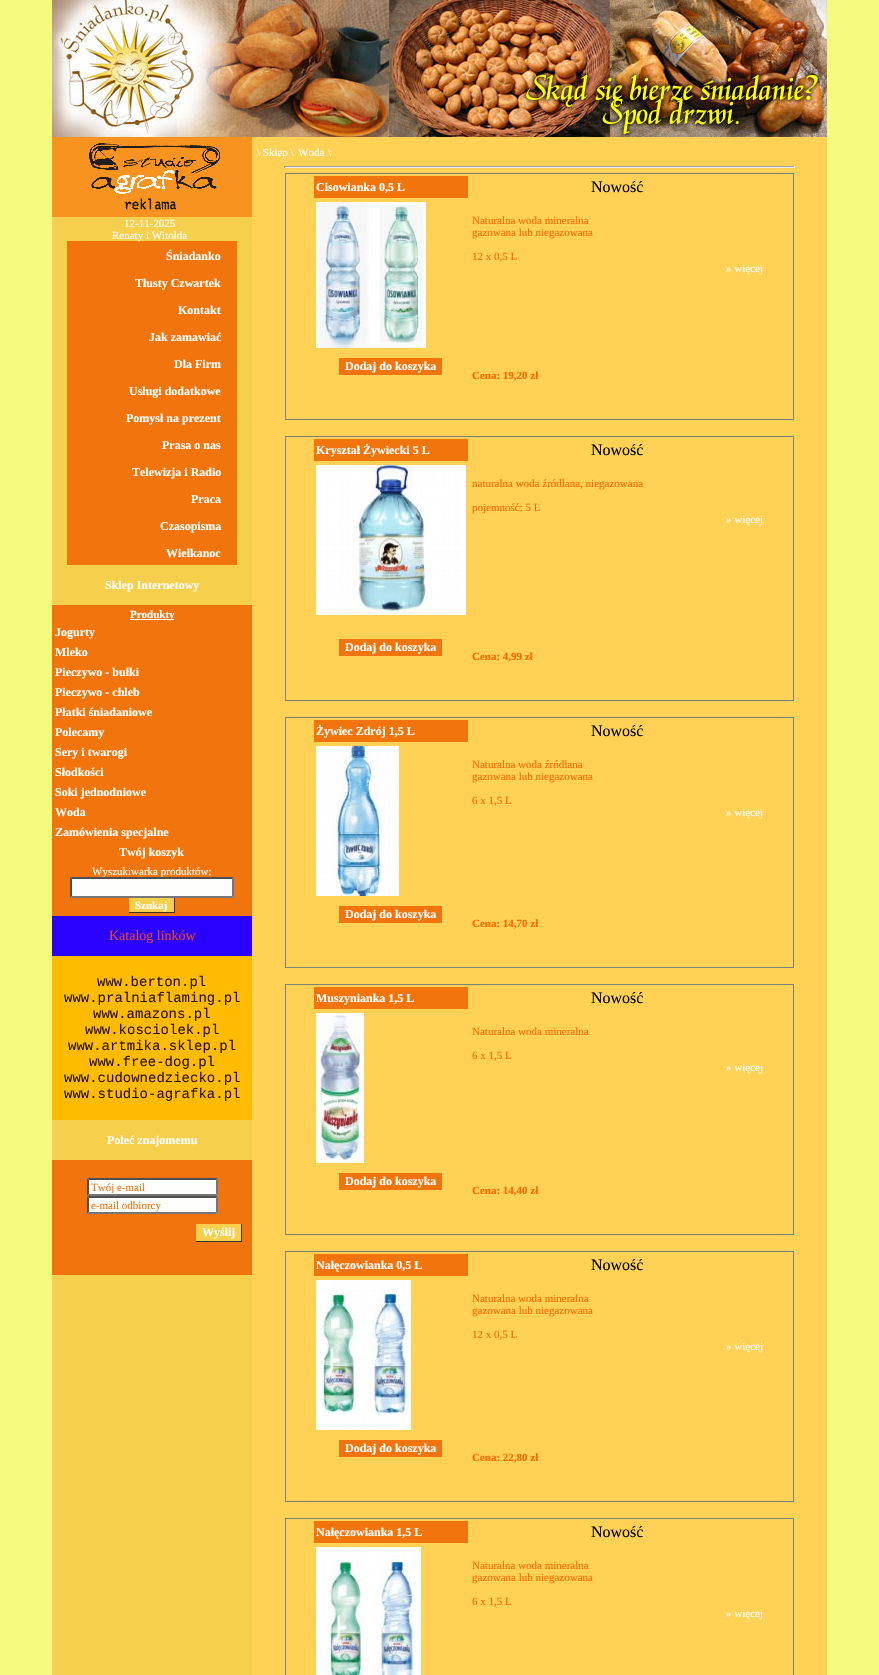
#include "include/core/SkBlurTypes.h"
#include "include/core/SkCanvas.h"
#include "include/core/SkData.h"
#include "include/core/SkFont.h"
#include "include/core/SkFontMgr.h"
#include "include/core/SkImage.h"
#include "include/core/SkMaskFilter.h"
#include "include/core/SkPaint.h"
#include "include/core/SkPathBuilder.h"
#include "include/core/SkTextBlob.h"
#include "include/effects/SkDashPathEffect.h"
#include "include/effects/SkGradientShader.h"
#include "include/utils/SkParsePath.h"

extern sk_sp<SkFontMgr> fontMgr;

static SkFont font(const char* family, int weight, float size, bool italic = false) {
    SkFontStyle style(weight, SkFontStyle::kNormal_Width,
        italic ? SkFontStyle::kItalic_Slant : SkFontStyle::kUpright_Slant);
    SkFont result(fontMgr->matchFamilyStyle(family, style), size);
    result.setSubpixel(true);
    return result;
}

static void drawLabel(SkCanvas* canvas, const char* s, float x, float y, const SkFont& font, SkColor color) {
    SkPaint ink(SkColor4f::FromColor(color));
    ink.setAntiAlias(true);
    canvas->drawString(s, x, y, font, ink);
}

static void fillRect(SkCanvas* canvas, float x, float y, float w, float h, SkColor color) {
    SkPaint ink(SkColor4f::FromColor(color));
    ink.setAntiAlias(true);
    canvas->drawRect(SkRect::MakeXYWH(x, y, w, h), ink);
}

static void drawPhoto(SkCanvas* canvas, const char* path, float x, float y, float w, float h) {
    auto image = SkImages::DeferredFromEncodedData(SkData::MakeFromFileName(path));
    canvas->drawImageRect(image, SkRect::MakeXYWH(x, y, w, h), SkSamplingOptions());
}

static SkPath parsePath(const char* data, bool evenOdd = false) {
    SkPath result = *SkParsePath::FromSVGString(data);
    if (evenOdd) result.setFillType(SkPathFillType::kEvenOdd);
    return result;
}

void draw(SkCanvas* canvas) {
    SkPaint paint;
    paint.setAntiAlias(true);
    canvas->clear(0xFFF4FA7D);
    drawPhoto(canvas, "assets/img1.png", 52, 0, 775, 137);
    fillRect(canvas, 52, 217, 200, 1458, 0xFFF6CF4C);
    drawPhoto(canvas, "assets/img2.png", 52, 137, 200, 80);
    SkFont font1 = font("Liberation Serif", 400, 11);
    drawLabel(canvas, "12-11-2025", 124, 227, font1, 0xFFFEFFFC);
    fillRect(canvas, 67, 241, 170, 324, 0xFFF2740C);
    drawLabel(canvas, "Renaty i Witolda", 112, 239, font1, 0xFFFEFFFC);
    SkFont font2 = font("Liberation Serif", 700, 12);
    drawLabel(canvas, "Śniadanko", 166, 260, font2, 0xFFFEFFFC);
    drawLabel(canvas, "Tłusty Czwartek", 135, 287, font2, 0xFFFEFFFC);
    drawLabel(canvas, "Kontakt", 178, 314, font2, 0xFFFEFFFC);
    drawLabel(canvas, "Jak zamawiać", 149, 341, font2, 0xFFFEFFFC);
    drawLabel(canvas, "Dla Firm", 174, 368, font2, 0xFFFEFFFC);
    drawLabel(canvas, "Usługi dodatkowe", 129, 395, font2, 0xFFFEFFFC);
    drawLabel(canvas, "Pomysł na prezent", 126, 422, font2, 0xFFFEFFFC);
    drawLabel(canvas, "Prasa o nas", 162, 449, font2, 0xFFFEFFFC);
    drawLabel(canvas, "Telewizja i Radio", 132, 476, font2, 0xFFFEFFFC);
    drawLabel(canvas, "Praca", 191, 503, font2, 0xFFFEFFFC);
    drawLabel(canvas, "Czasopisma", 160, 530, font2, 0xFFFEFFFC);
    drawLabel(canvas, "Wielkanoc", 166, 557, font2, 0xFFFEFFFC);
    fillRect(canvas, 52, 605, 200, 311, 0xFFF2740C);
    drawLabel(canvas, "Sklep Internetowy", 105, 589, font2, 0xFFFEFFFC);
    fillRect(canvas, 130, 619, 44, 1, 0xFFFEFFFC);
    SkFont font3 = font("Liberation Serif", 700, 11);
    drawLabel(canvas, "Produkty", 130, 618, font3, 0xFFFEFFFC);
    drawLabel(canvas, "Jogurty", 55, 636, font2, 0xFFFEFFFC);
    drawLabel(canvas, "Mleko", 55, 656, font2, 0xFFFEFFFC);
    drawLabel(canvas, "Pieczywo - bułki", 55, 676, font2, 0xFFFEFFFC);
    drawLabel(canvas, "Pieczywo - chleb", 55, 696, font2, 0xFFFEFFFC);
    drawLabel(canvas, "Płatki śniadaniowe", 55, 716, font2, 0xFFFEFFFC);
    drawLabel(canvas, "Polecamy", 55, 736, font2, 0xFFFEFFFC);
    drawLabel(canvas, "Sery i twarogi", 55, 756, font2, 0xFFFEFFFC);
    drawLabel(canvas, "Słodkości", 55, 776, font2, 0xFFFEFFFC);
    drawLabel(canvas, "Soki jednodniowe", 55, 796, font2, 0xFFFEFFFC);
    drawLabel(canvas, "Woda", 55, 816, font2, 0xFFFEFFFC);
    drawLabel(canvas, "Zamówienia specjalne", 55, 836, font2, 0xFFFEFFFC);
    drawLabel(canvas, "Twój koszyk", 119, 856, font2, 0xFFFEFFFC);
    drawLabel(canvas, "Wyszukiwarka produktów:", 92, 875, font1, 0xFFFEFFFC);
    fillRect(canvas, 70, 877, 164, 21, 0xFFFEFFFC);
    paint.setColor(0xFF4F4F4F);
    canvas->drawPath(parsePath("M70 877H234L232 879H72Z"), paint);
    paint.setColor(0xFF767676);
    canvas->drawPath(parsePath("M234 877V898L232 896V879Z"), paint);
    canvas->drawPath(parsePath("M234 898H70L72 896H232Z"), paint);
    paint.setColor(0xFF4F4F4F);
    canvas->drawPath(parsePath("M70 898V877L72 879V896Z"), paint);
    fillRect(canvas, 129, 898, 45, 14, 0xFFF6CF4C);
    fillRect(canvas, 174, 898, 1, 15, 0xFF333333);
    fillRect(canvas, 129, 912, 46, 1, 0xFF333333);
    drawLabel(canvas, "Szukaj", 135, 909, font3, 0xFFFEFFFC);
    fillRect(canvas, 52, 956, 200, 164, 0xFFFFBB00);
    fillRect(canvas, 52, 916, 200, 40, 0xFF2A00FF);
    SkFont font4 = font("Liberation Serif", 400, 14);
    drawLabel(canvas, "Katalog linków", 109, 940, font4, 0xFFE34922);
    SkFont font5 = font("Liberation Mono", 400, 14);
    drawLabel(canvas, "www.berton.pl", 97, 986, font5, 0xFF2B1313);
    drawLabel(canvas, "www.pralniaflaming.pl", 64, 1002, font5, 0xFF2B1313);
    drawLabel(canvas, "www.amazons.pl", 93, 1018, font5, 0xFF2B1313);
    drawLabel(canvas, "www.kosciolek.pl", 85, 1034, font5, 0xFF2B1313);
    drawLabel(canvas, "www.artmika.sklep.pl", 68, 1050, font5, 0xFF2B1313);
    drawLabel(canvas, "www.free-dog.pl", 89, 1066, font5, 0xFF2B1313);
    drawLabel(canvas, "www.cudownedziecko.pl", 64, 1082, font5, 0xFF2B1313);
    drawLabel(canvas, "www.studio-agrafka.pl", 64, 1098, font5, 0xFF2B1313);
    fillRect(canvas, 52, 1160, 200, 115, 0xFFF2740C);
    drawLabel(canvas, "Poleć znajomemu", 107, 1144, font2, 0xFFFEFFFC);
    fillRect(canvas, 87, 1178, 131, 36, 0xFFFEFFFC);
    canvas->drawPath(parsePath("M87 1178H218L216 1180H89Z"), paint);
    paint.setColor(0xFF767676);
    canvas->drawPath(parsePath("M218 1178V1196L216 1194V1180Z"), paint);
    canvas->drawPath(parsePath("M218 1196H87L89 1194H216Z"), paint);
    paint.setColor(0xFF4F4F4F);
    canvas->drawPath(parsePath("M87 1196V1178L89 1180V1194Z"), paint);
    canvas->save();
    canvas->clipRect(SkRect::MakeXYWH(91, 1181, 123, 12));
    drawLabel(canvas, "Twój e-mail", 91, 1191, font1, 0xFFF2740C);
    canvas->restore();
    canvas->drawPath(parsePath("M87 1196H218L216 1198H89Z"), paint);
    paint.setColor(0xFF767676);
    canvas->drawPath(parsePath("M218 1196V1214L216 1212V1198Z"), paint);
    canvas->drawPath(parsePath("M218 1214H87L89 1212H216Z"), paint);
    paint.setColor(0xFF4F4F4F);
    canvas->drawPath(parsePath("M87 1214V1196L89 1198V1212Z"), paint);
    drawLabel(canvas, "e-mail odbiorcy", 91, 1209, font1, 0xFFF2740C);
    fillRect(canvas, 196, 1224, 45, 17, 0xFFF6CF4C);
    fillRect(canvas, 241, 1224, 1, 18, 0xFF333333);
    fillRect(canvas, 196, 1241, 46, 1, 0xFF333333);
    drawLabel(canvas, "Wyślij", 202, 1236, font2, 0xFFFEFFFC);
    fillRect(canvas, 252, 137, 575, 1538, 0xFFFFD154);
    drawLabel(canvas, "\\ Sklep \\", 257, 156, font1, 0xFFFEFFFC);
    drawLabel(canvas, "Woda", 298, 156, font1, 0xFFFEFFFC);
    drawLabel(canvas, "\\", 328, 156, font1, 0xFFFEFFFC);
    fillRect(canvas, 284, 166, 511, 1, 0xFF9F9F9F);
    fillRect(canvas, 794, 166, 1, 2, 0xFFEEEEEE);
    fillRect(canvas, 284, 167, 511, 1, 0xFFEEEEEE);
    fillRect(canvas, 284, 166, 1, 2, 0xFF9F9F9F);
    fillRect(canvas, 285, 173, 509, 1, 0xFF808080);
    fillRect(canvas, 793, 173, 1, 247, 0xFF808080);
    fillRect(canvas, 285, 419, 509, 1, 0xFF808080);
    fillRect(canvas, 285, 173, 1, 247, 0xFF808080);
    fillRect(canvas, 314, 176, 154, 22, 0xFFF2740C);
    drawLabel(canvas, "Cisowianka 0,5 L", 316, 191, font2, 0xFFFEFFFC);
    SkFont font6 = font("Liberation Serif", 400, 16);
    drawLabel(canvas, "Nowość", 591, 192, font6, 0xFF000000);
    drawPhoto(canvas, "assets/img3.png", 316, 202, 110, 146);
    drawLabel(canvas, "Naturalna woda mineralna", 472, 224, font1, 0xFFFF6600);
    drawLabel(canvas, "gazowana lub niegazowana", 472, 236, font1, 0xFFFF6600);
    drawLabel(canvas, "12 x 0,5 L", 472, 260, font1, 0xFFFF6600);
    drawLabel(canvas, "» więcej", 726, 272, font1, 0xFFFEFFFC);
    fillRect(canvas, 339, 358, 103, 17, 0xFFF2740C);
    drawLabel(canvas, "Dodaj do koszyka", 345, 370, font2, 0xFFFEFFFC);
    drawLabel(canvas, "Cena: 19,20 zł", 472, 379, font3, 0xFFFF6600);
    fillRect(canvas, 285, 436, 509, 1, 0xFF808080);
    fillRect(canvas, 793, 436, 1, 265, 0xFF808080);
    fillRect(canvas, 285, 700, 509, 1, 0xFF808080);
    fillRect(canvas, 285, 436, 1, 265, 0xFF808080);
    fillRect(canvas, 314, 439, 154, 22, 0xFFF2740C);
    drawLabel(canvas, "Kryształ Żywiecki 5 L", 316, 454, font2, 0xFFFEFFFC);
    drawLabel(canvas, "Nowość", 591, 455, font6, 0xFF000000);
    drawPhoto(canvas, "assets/img4.png", 316, 465, 150, 150);
    drawLabel(canvas, "naturalna woda źródlana, niegazowana", 472, 487, font1, 0xFFFF6600);
    drawLabel(canvas, "pojemność: 5 L", 472, 511, font1, 0xFFFF6600);
    drawLabel(canvas, "» więcej", 726, 523, font1, 0xFFFEFFFC);
    fillRect(canvas, 339, 639, 103, 17, 0xFFF2740C);
    drawLabel(canvas, "Dodaj do koszyka", 345, 651, font2, 0xFFFEFFFC);
    drawLabel(canvas, "Cena: 4,99 zł", 472, 660, font3, 0xFFFF6600);
    fillRect(canvas, 285, 717, 509, 1, 0xFF808080);
    fillRect(canvas, 793, 717, 1, 251, 0xFF808080);
    fillRect(canvas, 285, 967, 509, 1, 0xFF808080);
    fillRect(canvas, 285, 717, 1, 251, 0xFF808080);
    fillRect(canvas, 314, 720, 154, 22, 0xFFF2740C);
    drawLabel(canvas, "Żywiec Zdrój 1,5 L", 316, 735, font2, 0xFFFEFFFC);
    drawLabel(canvas, "Nowość", 591, 736, font6, 0xFF000000);
    drawPhoto(canvas, "assets/img5.png", 316, 746, 83, 150);
    drawLabel(canvas, "Naturalna woda źródlana", 472, 768, font1, 0xFFFF6600);
    drawLabel(canvas, "gazowana lub niegazowana", 472, 780, font1, 0xFFFF6600);
    drawLabel(canvas, "6 x 1,5 L", 472, 804, font1, 0xFFFF6600);
    drawLabel(canvas, "» więcej", 726, 816, font1, 0xFFFEFFFC);
    fillRect(canvas, 339, 906, 103, 17, 0xFFF2740C);
    drawLabel(canvas, "Dodaj do koszyka", 345, 918, font2, 0xFFFEFFFC);
    drawLabel(canvas, "Cena: 14,70 zł", 472, 927, font3, 0xFFFF6600);
    fillRect(canvas, 285, 984, 509, 1, 0xFF808080);
    fillRect(canvas, 793, 984, 1, 251, 0xFF808080);
    fillRect(canvas, 285, 1234, 509, 1, 0xFF808080);
    fillRect(canvas, 285, 984, 1, 251, 0xFF808080);
    fillRect(canvas, 314, 987, 154, 22, 0xFFF2740C);
    drawLabel(canvas, "Muszynianka 1,5 L", 316, 1002, font2, 0xFFFEFFFC);
    drawLabel(canvas, "Nowość", 591, 1003, font6, 0xFF000000);
    drawPhoto(canvas, "assets/img6.png", 316, 1013, 48, 150);
    drawLabel(canvas, "Naturalna woda mineralna", 472, 1035, font1, 0xFFFF6600);
    drawLabel(canvas, "6 x 1,5 L", 472, 1059, font1, 0xFFFF6600);
    drawLabel(canvas, "» więcej", 726, 1071, font1, 0xFFFEFFFC);
    fillRect(canvas, 339, 1173, 103, 17, 0xFFF2740C);
    drawLabel(canvas, "Dodaj do koszyka", 345, 1185, font2, 0xFFFEFFFC);
    drawLabel(canvas, "Cena: 14,40 zł", 472, 1194, font3, 0xFFFF6600);
    fillRect(canvas, 285, 1251, 509, 1, 0xFF808080);
    fillRect(canvas, 793, 1251, 1, 251, 0xFF808080);
    fillRect(canvas, 285, 1501, 509, 1, 0xFF808080);
    fillRect(canvas, 285, 1251, 1, 251, 0xFF808080);
    fillRect(canvas, 314, 1254, 154, 22, 0xFFF2740C);
    drawLabel(canvas, "Nałęczowianka 0,5 L", 316, 1269, font2, 0xFFFEFFFC);
    drawLabel(canvas, "Nowość", 591, 1270, font6, 0xFF000000);
    drawPhoto(canvas, "assets/img7.png", 316, 1280, 95, 150);
    drawLabel(canvas, "Naturalna woda mineralna", 472, 1302, font1, 0xFFFF6600);
    drawLabel(canvas, "gazowana lub niegazowana", 472, 1314, font1, 0xFFFF6600);
    drawLabel(canvas, "12 x 0,5 L", 472, 1338, font1, 0xFFFF6600);
    drawLabel(canvas, "» więcej", 726, 1350, font1, 0xFFFEFFFC);
    fillRect(canvas, 339, 1440, 103, 17, 0xFFF2740C);
    drawLabel(canvas, "Dodaj do koszyka", 345, 1452, font2, 0xFFFEFFFC);
    drawLabel(canvas, "Cena: 22,80 zł", 472, 1461, font3, 0xFFFF6600);
    fillRect(canvas, 285, 1518, 509, 1, 0xFF808080);
    fillRect(canvas, 793, 1518, 1, 157, 0xFF808080);
    fillRect(canvas, 285, 1518, 1, 157, 0xFF808080);
    fillRect(canvas, 314, 1521, 154, 22, 0xFFF2740C);
    drawLabel(canvas, "Nałęczowianka 1,5 L", 316, 1536, font2, 0xFFFEFFFC);
    drawLabel(canvas, "Nowość", 591, 1537, font6, 0xFF000000);
    drawPhoto(canvas, "assets/img8.png", 316, 1547, 105, 128);
    drawLabel(canvas, "Naturalna woda mineralna", 472, 1569, font1, 0xFFFF6600);
    drawLabel(canvas, "gazowana lub niegazowana", 472, 1581, font1, 0xFFFF6600);
    drawLabel(canvas, "6 x 1,5 L", 472, 1605, font1, 0xFFFF6600);
    drawLabel(canvas, "» więcej", 726, 1617, font1, 0xFFFEFFFC);
}
